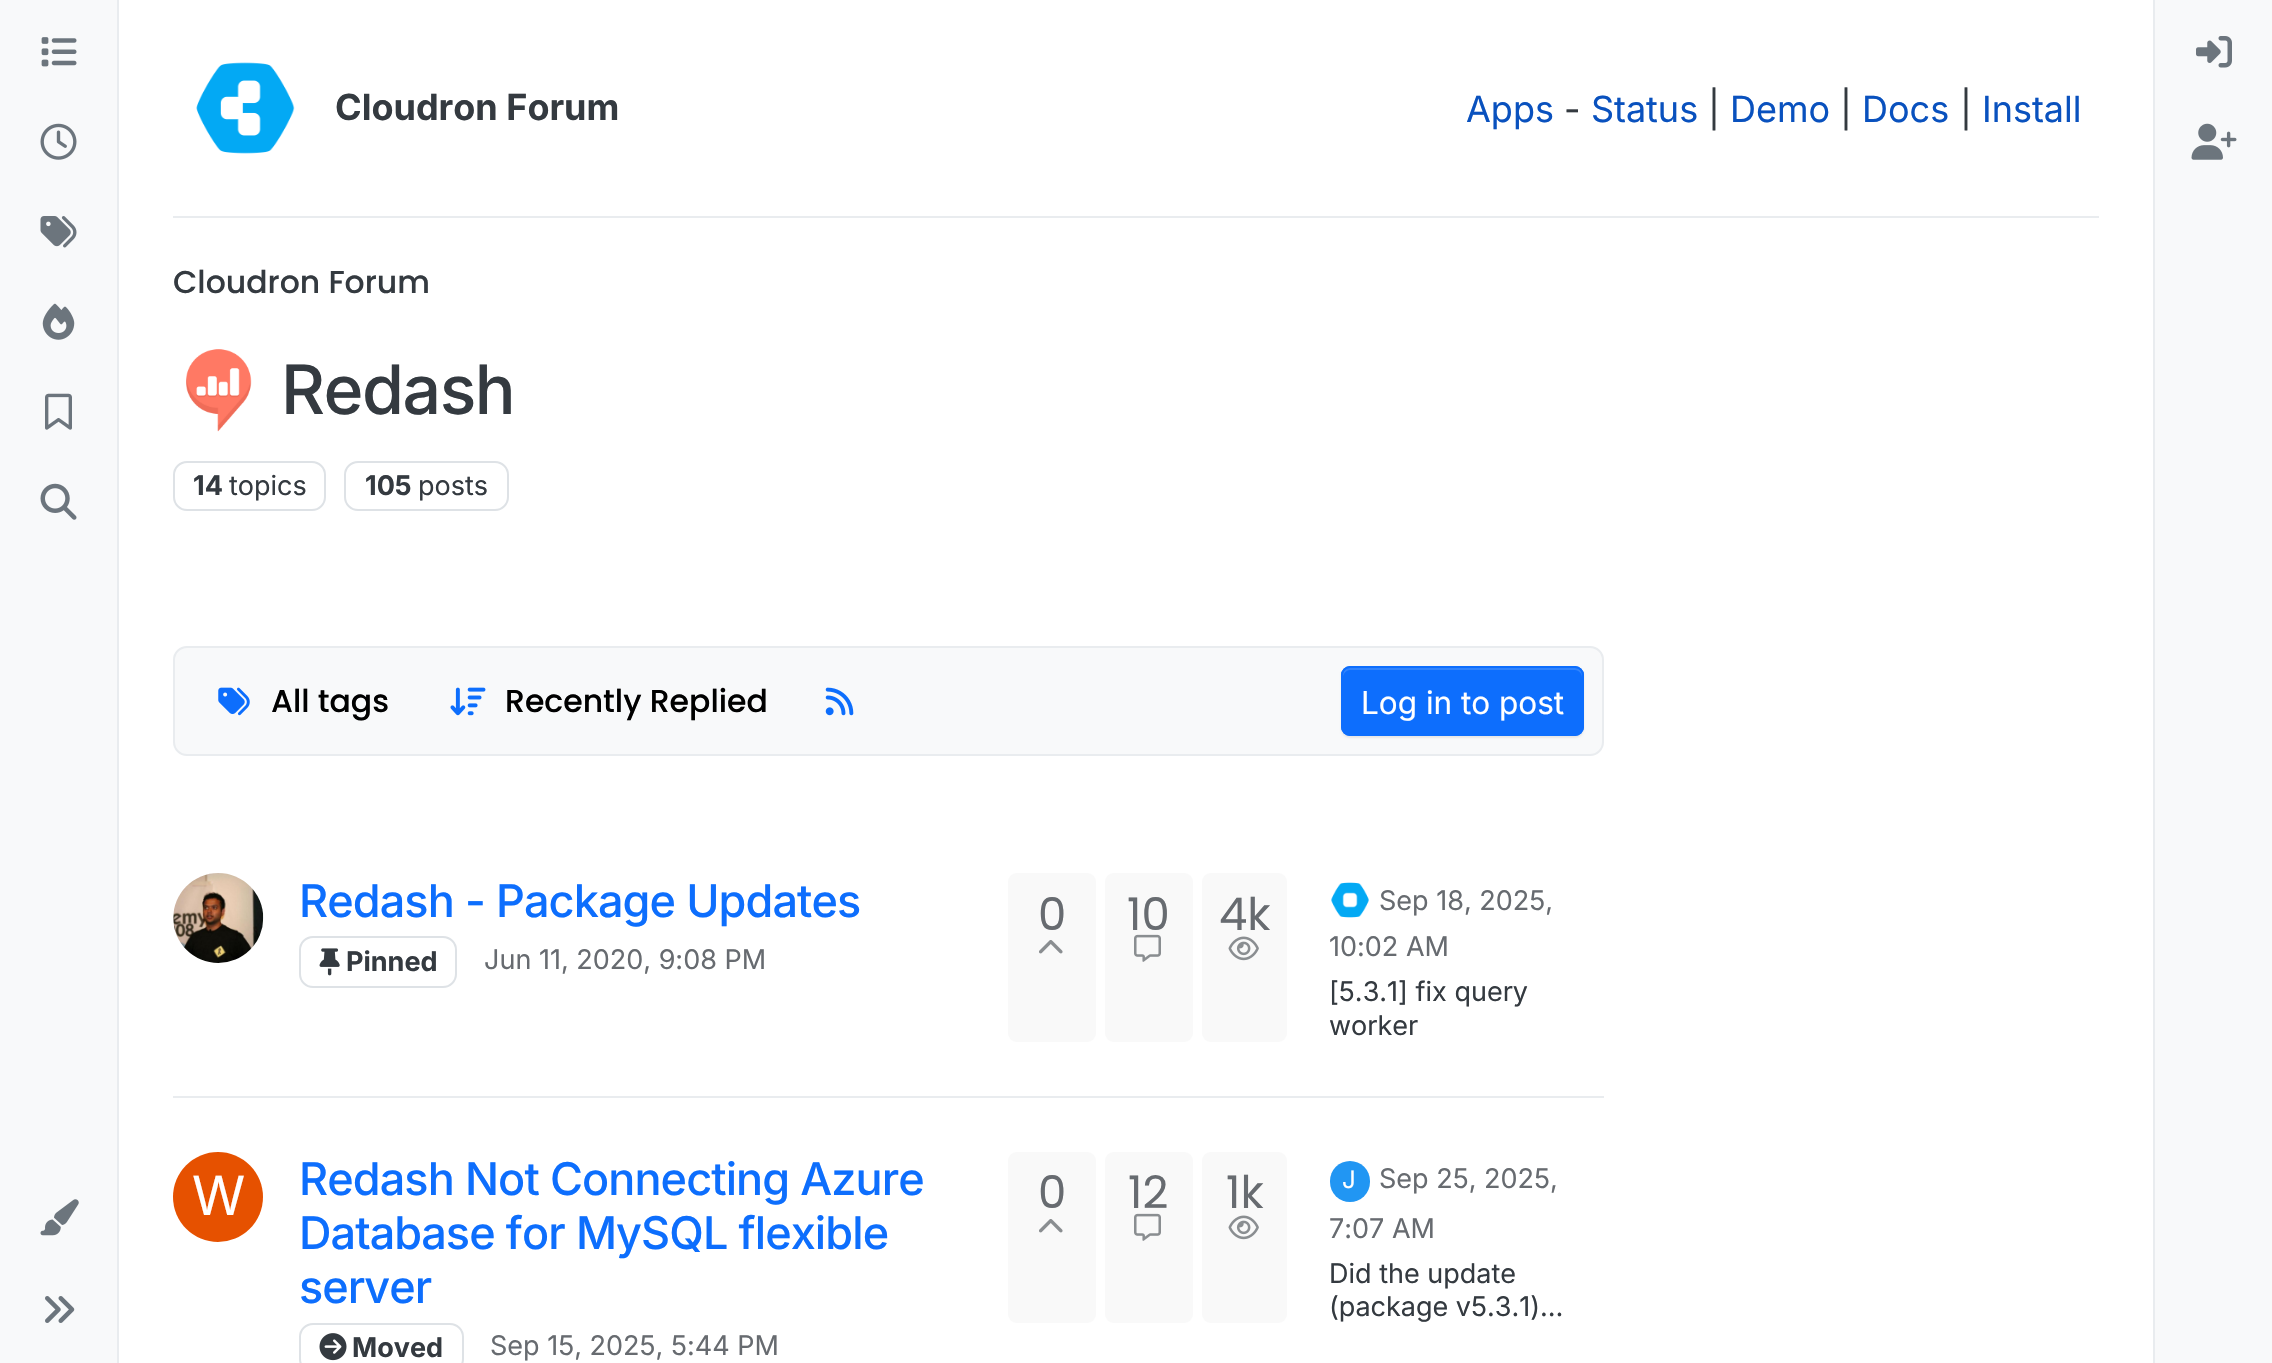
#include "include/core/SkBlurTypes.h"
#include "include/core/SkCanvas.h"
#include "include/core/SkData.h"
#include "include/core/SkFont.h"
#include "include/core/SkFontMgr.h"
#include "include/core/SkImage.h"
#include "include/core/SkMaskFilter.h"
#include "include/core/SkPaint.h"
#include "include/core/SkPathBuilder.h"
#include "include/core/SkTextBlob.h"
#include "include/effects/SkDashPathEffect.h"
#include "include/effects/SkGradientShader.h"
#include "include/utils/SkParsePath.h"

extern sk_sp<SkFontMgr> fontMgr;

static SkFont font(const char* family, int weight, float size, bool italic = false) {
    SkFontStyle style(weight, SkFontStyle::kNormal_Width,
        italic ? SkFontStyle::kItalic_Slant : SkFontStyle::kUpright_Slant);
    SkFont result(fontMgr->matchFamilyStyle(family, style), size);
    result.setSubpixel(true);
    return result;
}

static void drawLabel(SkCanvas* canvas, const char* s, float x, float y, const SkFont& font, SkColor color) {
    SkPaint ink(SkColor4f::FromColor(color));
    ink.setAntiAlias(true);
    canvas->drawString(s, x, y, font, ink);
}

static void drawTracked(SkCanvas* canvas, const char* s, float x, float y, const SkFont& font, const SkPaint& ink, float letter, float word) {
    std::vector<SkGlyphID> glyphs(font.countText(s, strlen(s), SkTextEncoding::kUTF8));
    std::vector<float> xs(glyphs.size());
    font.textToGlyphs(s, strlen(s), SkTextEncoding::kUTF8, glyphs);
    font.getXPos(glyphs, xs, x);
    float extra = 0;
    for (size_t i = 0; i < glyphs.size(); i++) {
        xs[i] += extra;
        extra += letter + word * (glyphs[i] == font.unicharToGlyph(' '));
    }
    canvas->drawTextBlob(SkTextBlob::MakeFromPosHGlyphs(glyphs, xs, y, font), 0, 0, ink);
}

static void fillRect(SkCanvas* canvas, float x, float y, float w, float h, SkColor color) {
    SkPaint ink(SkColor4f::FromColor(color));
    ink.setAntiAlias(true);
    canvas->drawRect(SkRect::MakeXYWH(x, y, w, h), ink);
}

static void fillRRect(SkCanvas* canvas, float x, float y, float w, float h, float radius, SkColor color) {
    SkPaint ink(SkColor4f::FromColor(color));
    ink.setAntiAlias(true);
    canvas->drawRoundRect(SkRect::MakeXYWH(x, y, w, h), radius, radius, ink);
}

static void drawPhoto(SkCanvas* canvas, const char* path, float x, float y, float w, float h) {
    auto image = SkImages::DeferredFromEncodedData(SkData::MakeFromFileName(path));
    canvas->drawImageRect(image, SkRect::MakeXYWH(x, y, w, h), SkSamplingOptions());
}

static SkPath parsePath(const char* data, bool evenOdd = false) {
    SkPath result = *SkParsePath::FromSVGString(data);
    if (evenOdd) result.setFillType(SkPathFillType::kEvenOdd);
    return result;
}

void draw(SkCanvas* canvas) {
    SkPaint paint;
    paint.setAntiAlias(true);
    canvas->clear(0xFFFFFFFF);
    fillRect(canvas, 0, 0, 117, 1363, 0xFFF8F9FA);
    fillRect(canvas, 117, 0, 2, 1363, 0xFFE9ECEF);
    drawPhoto(canvas, "assets/img1.png", 41, 37, 36, 30);
    drawPhoto(canvas, "assets/img2.png", 40, 123, 37, 37);
    drawPhoto(canvas, "assets/img3.png", 40, 216, 37, 32);
    drawPhoto(canvas, "assets/img4.png", 42, 303, 33, 37);
    drawPhoto(canvas, "assets/img5.png", 45, 393, 27, 37);
    drawPhoto(canvas, "assets/img6.png", 40, 483, 37, 37);
    drawPhoto(canvas, "assets/img7.png", 40, 1199, 39, 37);
    drawPhoto(canvas, "assets/img8.png", 45, 1296, 30, 27);
    fillRect(canvas, 173, 216, 1926, 2, 0xFFE9ECEF);
    drawPhoto(canvas, "assets/img9.png", 196, 62, 99, 92);
    SkFont font1 = font("Inter", 700, 36);
    drawLabel(canvas, "Cloudron Forum", 335, 120, font1, 0xFF343A40);
    SkFont font2 = font("Inter", 400, 36);
    drawLabel(canvas, "Apps", 1466, 122, font2, 0xFF0951BE);
    drawLabel(canvas, "-", 1564, 122, font2, 0xFF343A40);
    drawLabel(canvas, "Status", 1591, 122, font2, 0xFF0951BE);
    drawLabel(canvas, "|", 1708, 122, font2, 0xFF343A40);
    drawLabel(canvas, "Demo", 1730, 122, font2, 0xFF0951BE);
    drawLabel(canvas, "|", 1840, 122, font2, 0xFF343A40);
    drawLabel(canvas, "Docs", 1862, 122, font2, 0xFF0951BE);
    drawLabel(canvas, "|", 1960, 122, font2, 0xFF343A40);
    drawLabel(canvas, "Install", 1982, 122, font2, 0xFF0951BE);
    SkFont font3 = font("Poppins", 500, 31.5f);
    drawLabel(canvas, "Cloudron Forum", 173, 293, font3, 0xFF343A40);
    drawPhoto(canvas, "assets/img10.png", 186, 349, 66, 83);
    SkFont font4 = font("Inter", 500, 68);
    paint.setColor(0xFF343A40);
    drawTracked(canvas, "Redash", 281, 414, font4, paint, -1.5f, 0);
    paint.setStroke(true);
    paint.setStrokeWidth(2);
    paint.setColor(0xFFDEE2E6);
    canvas->drawRoundRect(SkRect::MakeXYWH(174, 462, 151, 48), 13, 13, paint);
    SkFont font5 = font("Inter", 700, 27);
    drawLabel(canvas, "14", 193, 495, font5, 0xFF343A40);
    SkFont font6 = font("Inter", 400, 27);
    drawLabel(canvas, "topics", 229, 495, font6, 0xFF343A40);
    canvas->drawRoundRect(SkRect::MakeXYWH(345, 462, 163, 48), 13, 13, paint);
    drawLabel(canvas, "105", 365, 495, font5, 0xFF343A40);
    drawLabel(canvas, "posts", 418, 495, font6, 0xFF343A40);
    paint.setStroke(false);
    paint.setColor(0xFFF8F9FA);
    canvas->drawRoundRect(SkRect::MakeXYWH(174, 647, 1429, 108), 13, 13, paint);
    paint.setStroke(true);
    paint.setColor(0xFFE9ECEF);
    canvas->drawRoundRect(SkRect::MakeXYWH(174, 647, 1429, 108), 13, 13, paint);
    drawPhoto(canvas, "assets/img11.png", 218, 687, 32, 29);
    drawLabel(canvas, "All tags", 271, 712, font3, 0xFF000000);
    drawPhoto(canvas, "assets/img12.png", 450, 687, 36, 29);
    drawLabel(canvas, "Recently Replied", 505, 712, font3, 0xFF000000);
    drawPhoto(canvas, "assets/img13.png", 825, 687, 29, 29);
    paint.setStroke(false);
    paint.setColor(0x12000000);
    paint.setMaskFilter(SkMaskFilter::MakeBlur(kNormal_SkBlurStyle, 1));
    canvas->drawRoundRect(SkRect::MakeXYWH(1341, 668, 243, 70), 9, 9, paint);
    paint.setMaskFilter(nullptr);
    fillRRect(canvas, 1341, 666, 243, 70, 9, 0xFF0D6EFD);
    paint.setColor(0xFF3184FD);
    canvas->drawPath(parsePath("M1350 670H1575C1579 670 1582 674 1582 677V675C1582 671 1579 668 1575 668H1350C1346 668 1343 671 1343 675V677C1343 674 1346 670 1350 670Z"), paint);
    paint.setStroke(true);
    paint.setColor(0xFF0D6EFD);
    canvas->drawRoundRect(SkRect::MakeXYWH(1342, 667, 241, 68), 8, 8, paint);
    SkFont font7 = font("Inter", 400, 31.5f);
    drawLabel(canvas, "Log in to post", 1361, 714, font7, 0xFFFFFFFF);
    fillRect(canvas, 173, 1096, 1431, 2, 0xFFE9ECEF);
    drawPhoto(canvas, "assets/img14.png", 173, 873, 91, 90);
    SkFont font8 = font("Inter", 500, 45);
    paint.setStroke(false);
    drawTracked(canvas, "Redash - Package Updates", 299, 917, font8, paint, -0.9f, 0);
    paint.setStroke(true);
    paint.setColor(0xFFDEE2E6);
    canvas->drawRoundRect(SkRect::MakeXYWH(300, 937, 156, 50), 13, 13, paint);
    drawPhoto(canvas, "assets/img15.png", 319, 948, 21, 28);
    drawLabel(canvas, "Pinned", 346, 971, font5, 0xFF343A40);
    drawLabel(canvas, "Jun 11, 2020, 9:08 PM", 484, 969, font6, 0xFF676B70);
    fillRRect(canvas, 1008, 873, 88, 169, 9, 0xFFF9F9F9);
    SkFont font9 = font("Poppins", 400, 45);
    drawLabel(canvas, "0", 1038, 930, font9, 0xFF676B70);
    drawPhoto(canvas, "assets/img16.png", 1039, 940, 24, 14);
    fillRRect(canvas, 1105, 873, 88, 169, 9, 0xFFF9F9F9);
    drawLabel(canvas, "10", 1127, 930, font9, 0xFF676B70);
    drawPhoto(canvas, "assets/img17.png", 1134, 934, 27, 28);
    fillRRect(canvas, 1202, 873, 85, 169, 9, 0xFFF9F9F9);
    drawLabel(canvas, "4k", 1219, 930, font9, 0xFF676B70);
    drawPhoto(canvas, "assets/img18.png", 1228, 936, 31, 25);
    drawPhoto(canvas, "assets/img19.png", 1331, 882, 38, 36);
    drawLabel(canvas, "Sep 18, 2025,", 1379, 910, font6, 0xFF676B70);
    drawLabel(canvas, "10:02 AM", 1329, 956, font6, 0xFF676B70);
    drawLabel(canvas, "[5.3.1] fix query", 1329, 1001, font6, 0xFF343A40);
    drawLabel(canvas, "worker", 1329, 1035, font6, 0xFF343A40);
    paint.setStroke(false);
    paint.setColor(0xFFE65100);
    canvas->drawCircle(218, 1197, 45, paint);
    SkFont font10 = font("Inter", 400, 54);
    drawLabel(canvas, "W", 192, 1215, font10, 0xFFFFFFFF);
    paint.setColor(0xFF0D6EFD);
    drawTracked(canvas, "Redash Not Connecting Azure", 299, 1195, font8, paint, -0.9f, 0);
    drawTracked(canvas, "Database for MySQL flexible", 299, 1249, font8, paint, -0.9f, 0);
    drawTracked(canvas, "server", 299, 1303, font8, paint, -0.9f, 0);
    paint.setStroke(true);
    paint.setColor(0xFFDEE2E6);
    canvas->drawRoundRect(SkRect::MakeXYWH(300, 1324, 163, 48), 13, 13, paint);
    drawPhoto(canvas, "assets/img20.png", 319, 1333, 28, 28);
    drawLabel(canvas, "Moved", 352, 1357, font5, 0xFF343A40);
    drawLabel(canvas, "Sep 15, 2025, 5:44 PM", 490, 1355, font6, 0xFF676B70);
    fillRRect(canvas, 1008, 1152, 88, 171, 9, 0xFFF9F9F9);
    drawLabel(canvas, "0", 1038, 1208, font9, 0xFF676B70);
    drawPhoto(canvas, "assets/img16.png", 1039, 1219, 24, 14);
    fillRRect(canvas, 1105, 1152, 88, 171, 9, 0xFFF9F9F9);
    drawLabel(canvas, "12", 1128, 1208, font9, 0xFF676B70);
    drawPhoto(canvas, "assets/img17.png", 1134, 1213, 27, 28);
    fillRRect(canvas, 1202, 1152, 85, 171, 9, 0xFFF9F9F9);
    drawLabel(canvas, "1k", 1226, 1208, font9, 0xFF676B70);
    drawPhoto(canvas, "assets/img18.png", 1228, 1215, 31, 25);
    fillRRect(canvas, 1330, 1161, 40, 41, 20, 0xFF2196F3);
    SkFont font11 = font("Inter", 400, 24);
    drawLabel(canvas, "J", 1342, 1188, font11, 0xFFFFFFFF);
    drawLabel(canvas, "Sep 25, 2025,", 1379, 1188, font6, 0xFF676B70);
    drawLabel(canvas, "7:07 AM", 1329, 1238, font6, 0xFF676B70);
    drawLabel(canvas, "Did the update", 1329, 1283, font6, 0xFF343A40);
    drawLabel(canvas, "(package v5.3.1)…", 1329, 1316, font6, 0xFF343A40);
    fillRect(canvas, 2155, 0, 117, 1363, 0xFFF8F9FA);
    fillRect(canvas, 2153, 0, 2, 1363, 0xFFE9ECEF);
    drawPhoto(canvas, "assets/img21.png", 2196, 36, 36, 32);
    drawPhoto(canvas, "assets/img22.png", 2191, 123, 46, 37);
}
